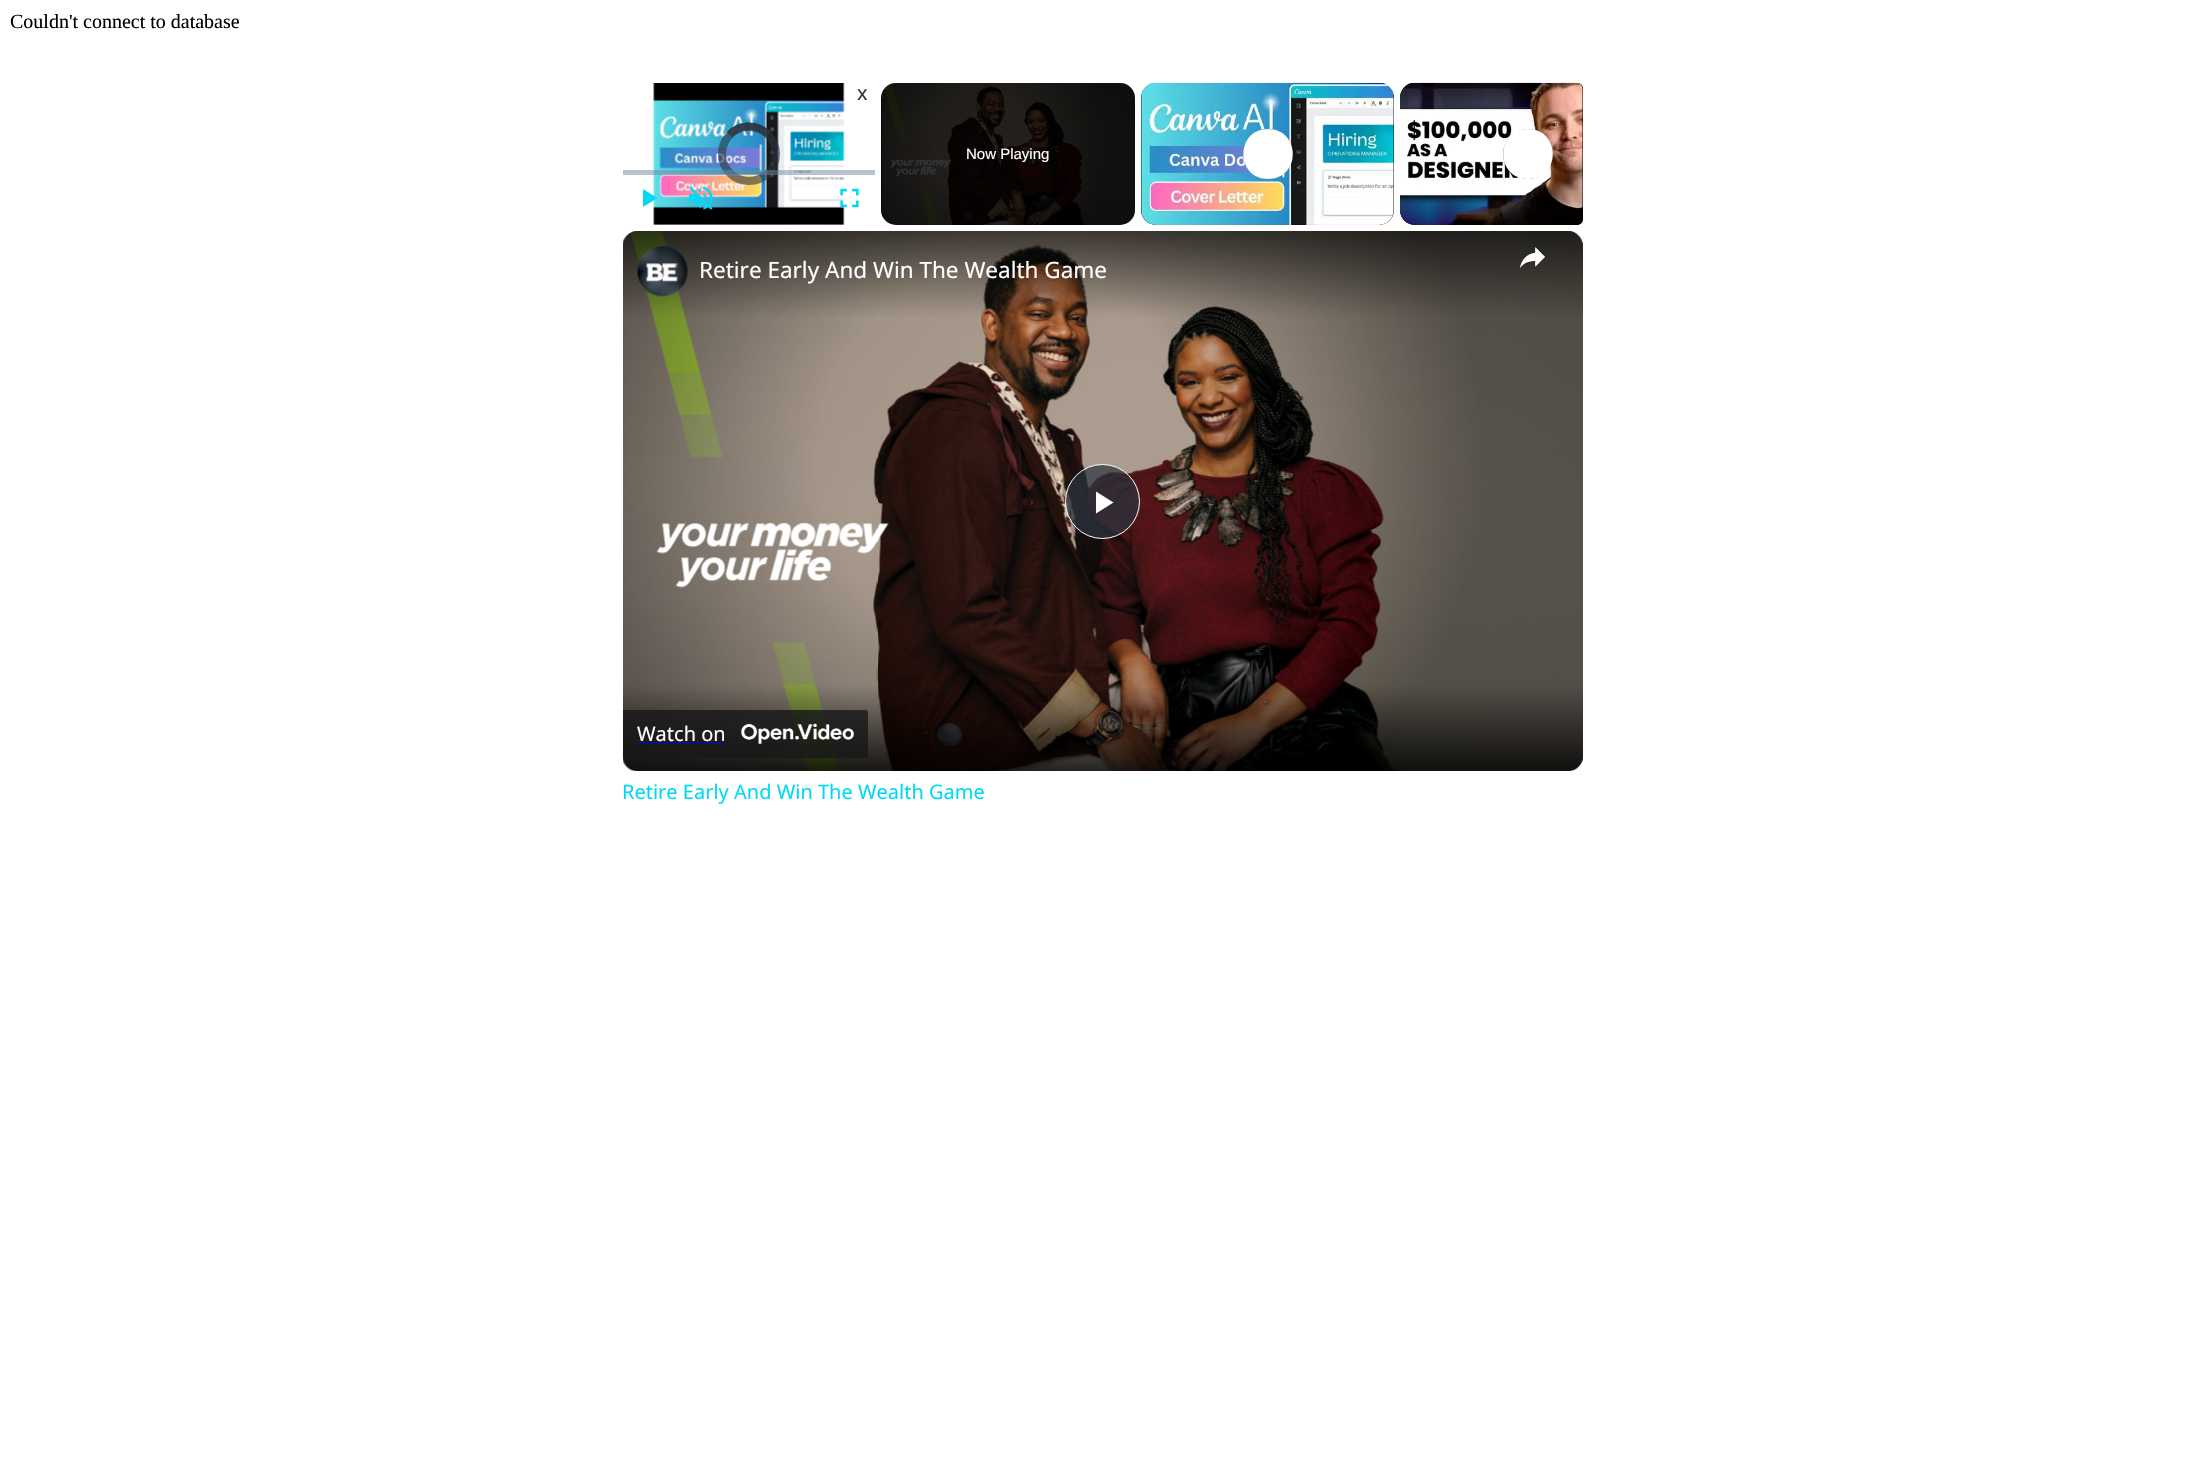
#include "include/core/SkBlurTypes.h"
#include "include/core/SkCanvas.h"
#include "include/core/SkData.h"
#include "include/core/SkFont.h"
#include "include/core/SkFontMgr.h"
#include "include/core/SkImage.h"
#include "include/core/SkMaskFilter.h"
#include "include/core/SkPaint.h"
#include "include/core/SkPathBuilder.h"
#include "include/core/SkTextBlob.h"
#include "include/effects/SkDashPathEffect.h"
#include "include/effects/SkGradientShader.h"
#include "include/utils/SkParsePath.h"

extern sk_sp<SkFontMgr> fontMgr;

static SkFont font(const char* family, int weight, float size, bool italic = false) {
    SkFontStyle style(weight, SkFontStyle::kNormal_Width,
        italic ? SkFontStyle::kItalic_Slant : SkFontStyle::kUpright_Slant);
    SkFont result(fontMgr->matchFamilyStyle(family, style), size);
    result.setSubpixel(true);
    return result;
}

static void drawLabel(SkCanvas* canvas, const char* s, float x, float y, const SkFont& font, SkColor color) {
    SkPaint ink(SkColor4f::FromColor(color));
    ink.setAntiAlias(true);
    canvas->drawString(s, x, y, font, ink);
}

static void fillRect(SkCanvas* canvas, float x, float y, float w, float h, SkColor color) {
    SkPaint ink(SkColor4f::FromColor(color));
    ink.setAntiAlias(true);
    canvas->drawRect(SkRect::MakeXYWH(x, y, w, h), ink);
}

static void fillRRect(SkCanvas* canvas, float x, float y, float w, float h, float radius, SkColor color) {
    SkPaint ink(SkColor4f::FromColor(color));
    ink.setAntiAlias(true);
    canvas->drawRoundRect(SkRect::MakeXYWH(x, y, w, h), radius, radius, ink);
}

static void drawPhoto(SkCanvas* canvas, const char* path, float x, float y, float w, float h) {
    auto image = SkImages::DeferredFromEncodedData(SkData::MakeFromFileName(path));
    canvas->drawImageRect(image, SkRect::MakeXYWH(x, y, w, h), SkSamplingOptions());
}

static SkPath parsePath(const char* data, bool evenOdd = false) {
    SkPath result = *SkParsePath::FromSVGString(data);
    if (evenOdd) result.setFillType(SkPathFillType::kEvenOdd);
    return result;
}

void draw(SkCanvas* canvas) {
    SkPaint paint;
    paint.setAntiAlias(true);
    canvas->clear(0xFFFFFFFF);
    SkFont font1 = font("Liberation Serif", 400, 20);
    drawLabel(canvas, "Couldn't connect to database", 10, 28, font1, 0xFF000000);
    drawPhoto(canvas, "assets/img1.png", 653, 83, 192, 142);
    paint.setStroke(true);
    paint.setStrokeWidth(8);
    paint.setColor(0x962B333F);
    canvas->drawCircle(749, 154, 27, paint);
    paint.setStrokeWidth(7.5f);
    canvas->drawPath(parsePath("M729.5 134.5C740 123.5 757.5 123.5 768 134.5"), paint);
    canvas->drawPath(parsePath("M729.5 134.5C740 123.5 757.5 123.5 768 134.5"), paint);
    fillRect(canvas, 623, 170, 252, 5, 0x8073859F);
    paint.setStroke(false);
    paint.setColor(0xFF03D8F3);
    canvas->drawPath(parsePath("M643 189V207L657.5 198Z"), paint);
    drawPhoto(canvas, "assets/img2.png", 688, 186, 25, 24);
    drawPhoto(canvas, "assets/img3.png", 840, 188, 19, 20);
    SkFont font2 = font("Noto Sans", 400, 20);
    drawLabel(canvas, "x", 857, 100, font2, 0xFF333333);
    fillRRect(canvas, 881, 83, 254, 142, 15, 0xFF000000);
    drawPhoto(canvas, "assets/img4.png", 881, 83, 254, 142);
    SkFont font3 = font("Liberation Sans", 400, 15);
    drawLabel(canvas, "Now Playing", 966, 159, font3, 0xFFFFFFFF);
    fillRRect(canvas, 1141, 83, 253, 142, 15, 0xFF000000);
    drawPhoto(canvas, "assets/img5.png", 1141, 82, 253, 143);
    paint.setColor(0xB32B333F);
    canvas->drawCircle(1268, 154, 25, paint);
    paint.setColor(0xFFFFFFFF);
    canvas->drawPath(parsePath("M1268 129C1235 129 1235 179 1268 179C1301 179 1301 129 1268 129Z"), paint);
    paint.setColor(0xFF000000);
    canvas->drawPath(parsePath("M1415 83H1577C1580.5 83 1583 85.5 1583 89V219C1583 222.5 1580.5 225 1577 225H1415C1406.5 225 1400 218.5 1400 210V98C1400 89.5 1406.5 83 1415 83Z"), paint);
    drawPhoto(canvas, "assets/img6.png", 1400, 82, 183, 143);
    paint.setColor(0xB32B333F);
    canvas->drawCircle(1528, 154, 25, paint);
    paint.setColor(0xFFFFFFFF);
    canvas->drawPath(parsePath("M1528 129C1495 129 1495 179 1528 179C1561 179 1561 129 1528 129Z"), paint);
    drawPhoto(canvas, "assets/img7.png", 623, 231, 960, 540);
    drawPhoto(canvas, "assets/img8.png", 623, 231, 960, 540);
    paint.setColor(0xB32B333F);
    canvas->drawCircle(1102.5f, 501.5f, 37, paint);
    paint.setStroke(true);
    paint.setStrokeWidth(1);
    paint.setColor(0xFFFFFFFF);
    canvas->drawCircle(1102.5f, 501.5f, 37, paint);
    paint.setStroke(false);
    canvas->drawPath(parsePath("M1096 491.5V513.5L1113.5 502.5Z"), paint);
    {
        const SkColor colors[] = {0x99000000, 0x00000000, 0x00000000, 0xCC000000};
        const float stops[] = {0, 0.16f, 0.84f, 1};
        const SkPoint ends[] = {{1103, 231}, {1103, 771}};
        paint.setShader(SkGradientShader::MakeLinear(ends, colors, stops, 4, SkTileMode::kClamp));
        paint.setAlpha(255);
    }
    canvas->drawRoundRect(SkRect::MakeXYWH(623, 231, 960, 540), 15, 15, paint);
    drawPhoto(canvas, "assets/img9.png", 637, 246, 51, 51);
    SkFont font4 = font("Noto Sans", 400, 22.5f);
    drawLabel(canvas, "Retire Early And Win The Wealth Game", 699, 278, font4, 0xFFFFFFFF);
    drawPhoto(canvas, "assets/img10.png", 1519, 245, 27, 24);
    paint.setShader(nullptr);
    paint.setColor(0xCC171717);
    canvas->drawPath(parsePath("M623 710H865.5C867 710 868 711 868 712.5V755.5C868 757 867 758 865.5 758H623Z"), paint);
    drawLabel(canvas, "Watch on", 637, 741, font2, 0xFFFFFFFF);
    fillRect(canvas, 638, 743, 87, 1, 0xFF0000EE);
    drawPhoto(canvas, "assets/img11.png", 741, 723, 113, 21);
    drawLabel(canvas, "Retire Early And Win The Wealth Game", 622, 799, font2, 0xFF03D8F3);
}
